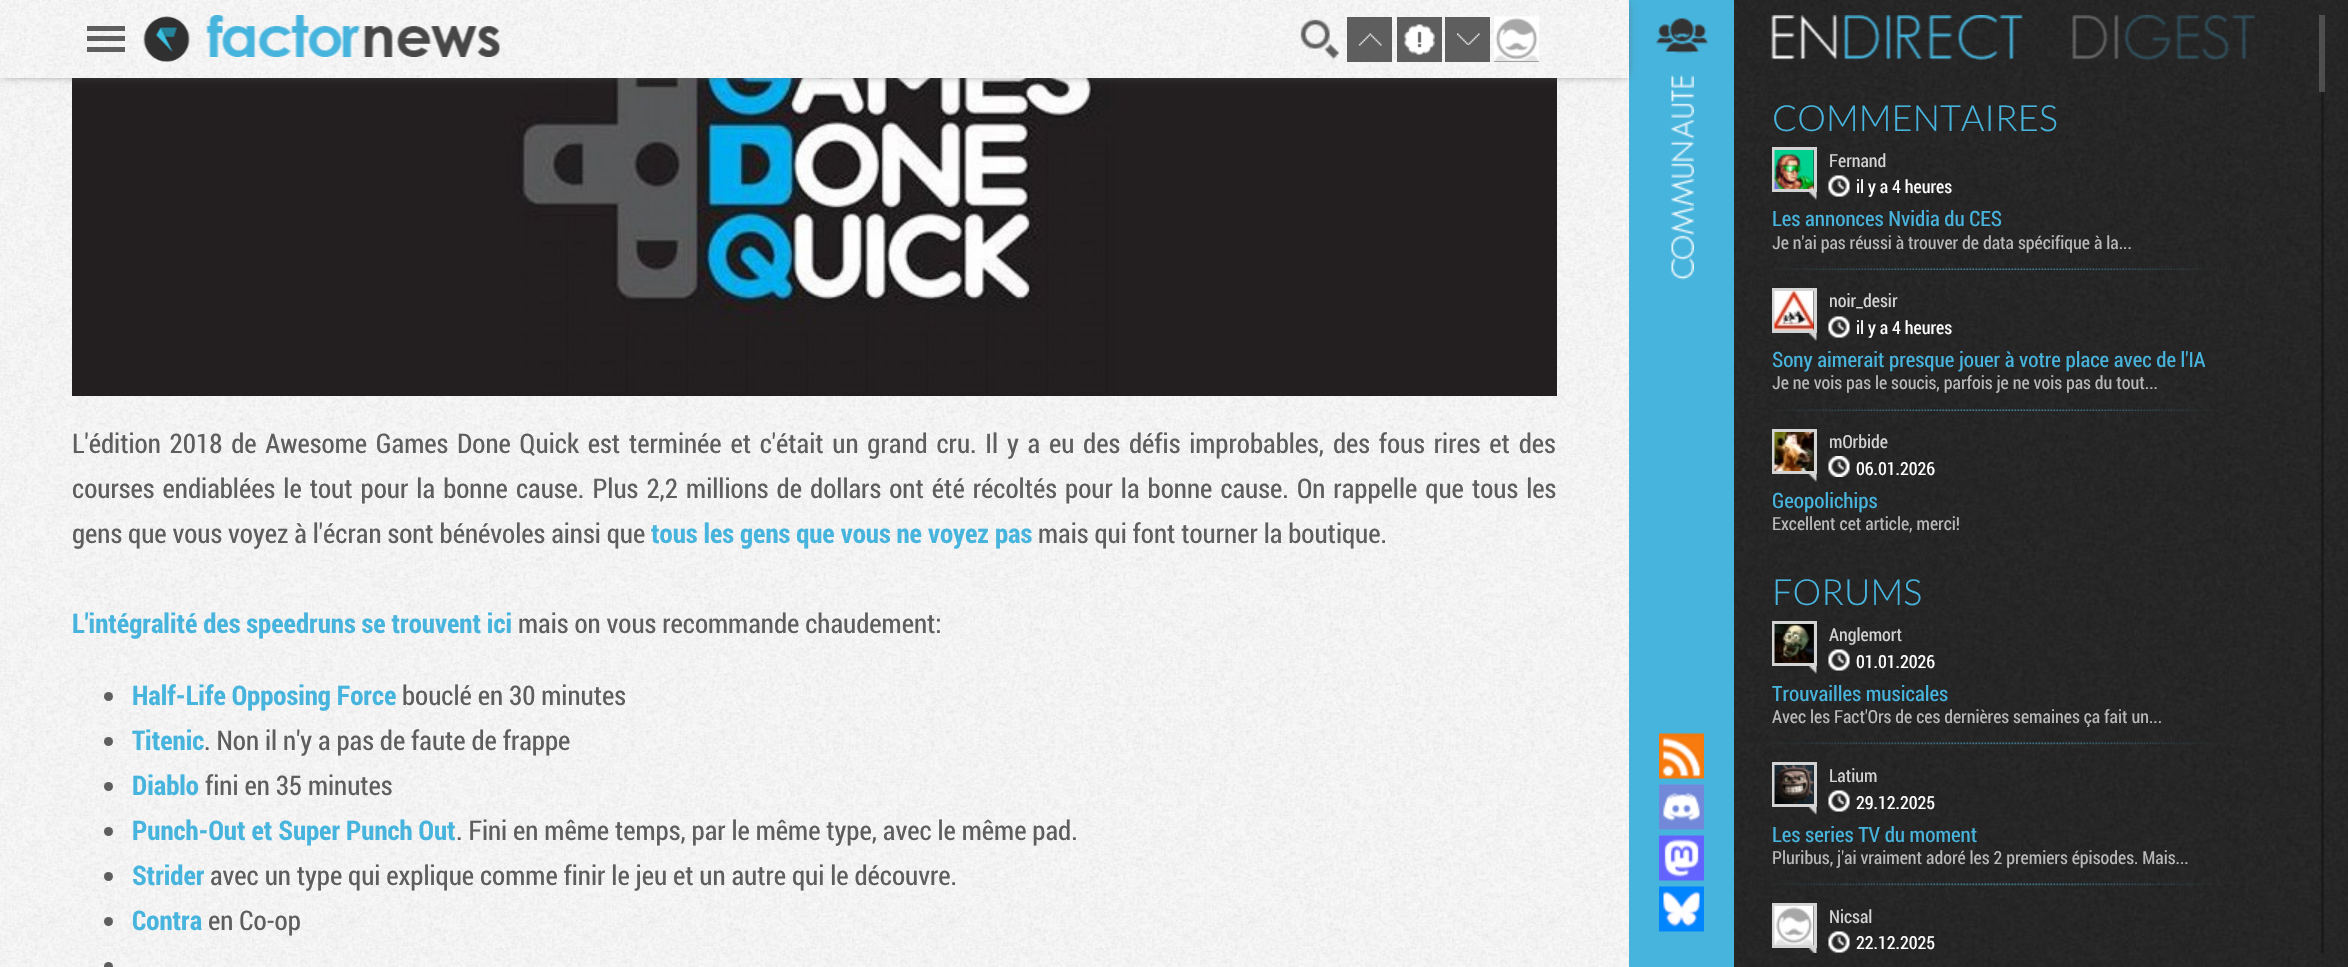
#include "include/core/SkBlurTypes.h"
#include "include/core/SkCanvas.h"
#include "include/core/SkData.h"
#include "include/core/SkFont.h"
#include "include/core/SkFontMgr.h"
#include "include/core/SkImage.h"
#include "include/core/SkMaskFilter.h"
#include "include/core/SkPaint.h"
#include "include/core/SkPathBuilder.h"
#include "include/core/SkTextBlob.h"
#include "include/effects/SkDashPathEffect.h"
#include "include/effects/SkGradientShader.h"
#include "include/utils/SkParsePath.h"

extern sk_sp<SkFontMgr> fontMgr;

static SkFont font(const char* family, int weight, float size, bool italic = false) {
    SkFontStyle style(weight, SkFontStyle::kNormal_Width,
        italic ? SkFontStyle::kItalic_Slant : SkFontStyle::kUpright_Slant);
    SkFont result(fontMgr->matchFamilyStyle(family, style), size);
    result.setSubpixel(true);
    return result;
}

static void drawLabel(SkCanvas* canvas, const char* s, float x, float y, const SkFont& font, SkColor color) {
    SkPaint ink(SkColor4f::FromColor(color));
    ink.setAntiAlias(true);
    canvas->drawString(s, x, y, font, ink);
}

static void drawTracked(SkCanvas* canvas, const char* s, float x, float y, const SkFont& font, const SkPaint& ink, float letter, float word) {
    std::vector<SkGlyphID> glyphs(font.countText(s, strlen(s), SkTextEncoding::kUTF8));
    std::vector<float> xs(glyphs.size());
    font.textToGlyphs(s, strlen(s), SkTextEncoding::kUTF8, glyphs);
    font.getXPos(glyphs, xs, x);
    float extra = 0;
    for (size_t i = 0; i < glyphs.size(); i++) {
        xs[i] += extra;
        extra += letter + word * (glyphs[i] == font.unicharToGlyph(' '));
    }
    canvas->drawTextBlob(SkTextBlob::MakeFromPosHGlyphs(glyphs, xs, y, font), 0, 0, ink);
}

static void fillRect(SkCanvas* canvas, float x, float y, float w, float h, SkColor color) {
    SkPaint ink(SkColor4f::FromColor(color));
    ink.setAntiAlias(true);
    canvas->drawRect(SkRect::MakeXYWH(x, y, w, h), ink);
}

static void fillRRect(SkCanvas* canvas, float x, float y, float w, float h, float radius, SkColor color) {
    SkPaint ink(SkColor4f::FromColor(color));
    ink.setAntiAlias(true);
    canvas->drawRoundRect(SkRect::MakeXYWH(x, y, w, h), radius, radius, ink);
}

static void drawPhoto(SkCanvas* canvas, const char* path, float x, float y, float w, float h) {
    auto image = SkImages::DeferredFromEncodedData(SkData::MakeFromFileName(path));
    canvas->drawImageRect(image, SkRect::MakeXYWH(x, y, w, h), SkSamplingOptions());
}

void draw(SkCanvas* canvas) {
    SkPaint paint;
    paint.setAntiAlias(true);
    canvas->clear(0xFFFFFFFF);
    drawPhoto(canvas, "assets/img1.png", 0, 78, 1629, 889);
    drawPhoto(canvas, "assets/img10.png", 72, 78, 1485, 318);
    fillRect(canvas, 1629, 0, 105, 967, 0xFF47B4DD);
    paint.setColor(0xFF5E5E5E);
    paint.setMaskFilter(SkMaskFilter::MakeBlur(kNormal_SkBlurStyle, 4.5f));
    canvas->drawRect(SkRect::MakeXYWH(3, 3, 1623, 72), paint);
    paint.setMaskFilter(nullptr);
    drawPhoto(canvas, "assets/img2.png", 0, 0, 1629, 78);
    fillRect(canvas, 87, 26, 38, 5, 0xFF5E5E5E);
    fillRect(canvas, 87, 36, 38, 5, 0xFF5E5E5E);
    fillRect(canvas, 87, 47, 38, 5, 0xFF5E5E5E);
    drawPhoto(canvas, "assets/img3.png", 143, 16, 47, 46);
    drawPhoto(canvas, "assets/img4.png", 206, 15, 294, 42);
    drawPhoto(canvas, "assets/img5.png", 1300, 19, 39, 41);
    fillRect(canvas, 1347, 17, 45, 45, 0xFF5E5E5E);
    drawPhoto(canvas, "assets/img6.png", 1358, 33, 24, 13);
    fillRect(canvas, 1397, 17, 45, 45, 0xFF5E5E5E);
    drawPhoto(canvas, "assets/img7.png", 1404, 24, 31, 31);
    fillRect(canvas, 1445, 17, 45, 45, 0xFF5E5E5E);
    drawPhoto(canvas, "assets/img8.png", 1457, 33, 23, 12);
    fillRect(canvas, 1494, 61, 45, 1, 0xFF5E5E5E);
    drawPhoto(canvas, "assets/img9.png", 1494, 16, 45, 46);
    SkFont font1 = font("Roboto Condensed", 400, 27);
    drawTracked(canvas, "L'édition 2018 de Awesome Games Done Quick est terminée et c'était un grand cru. Il y a eu des défis improbables, des fous rires et des", 72, 453, font1, paint, 0, 2.9f);
    drawTracked(canvas, "courses endiablées le tout pour la bonne cause. Plus 2,2 millions de dollars ont été récoltés pour la bonne cause. On rappelle que tous les", 72, 498, font1, paint, 0, 2.2f);
    drawLabel(canvas, "gens que vous voyez à l'écran sont bénévoles ainsi que", 72, 543, font1, 0xFF5E5E5E);
    SkFont font2 = font("Roboto Condensed", 700, 27);
    drawLabel(canvas, "tous les gens que vous ne voyez pas", 651, 543, font2, 0xFF47B4DD);
    drawLabel(canvas, "mais qui font tourner la boutique.", 1038, 543, font1, 0xFF5E5E5E);
    drawLabel(canvas, "L'intégralité des speedruns se trouvent ici", 72, 633, font2, 0xFF47B4DD);
    drawLabel(canvas, "mais on vous recommande chaudement:", 518, 633, font1, 0xFF5E5E5E);
    canvas->drawCircle(108.5f, 696.5f, 4.5f, paint);
    drawLabel(canvas, "Half-Life Opposing Force", 132, 705, font2, 0xFF47B4DD);
    drawLabel(canvas, "bouclé en 30 minutes", 402, 705, font1, 0xFF5E5E5E);
    canvas->drawCircle(108.5f, 741.5f, 4.5f, paint);
    drawLabel(canvas, "Titenic", 132, 750, font2, 0xFF47B4DD);
    drawLabel(canvas, ". Non il n'y a pas de faute de frappe", 204, 750, font1, 0xFF5E5E5E);
    canvas->drawCircle(108.5f, 786.5f, 4.5f, paint);
    drawLabel(canvas, "Diablo", 132, 795, font2, 0xFF47B4DD);
    drawLabel(canvas, "fini en 35 minutes", 205, 795, font1, 0xFF5E5E5E);
    canvas->drawCircle(108.5f, 831.5f, 4.5f, paint);
    drawLabel(canvas, "Punch-Out et Super Punch Out", 132, 840, font2, 0xFF47B4DD);
    drawLabel(canvas, ". Fini en même temps, par le même type, avec le même pad.", 456, 840, font1, 0xFF5E5E5E);
    canvas->drawCircle(108.5f, 876.5f, 4.5f, paint);
    drawLabel(canvas, "Strider", 132, 885, font2, 0xFF47B4DD);
    drawLabel(canvas, "avec un type qui explique comme finir le jeu et un autre qui le découvre.", 210, 885, font1, 0xFF5E5E5E);
    canvas->drawCircle(108.5f, 921.5f, 4.5f, paint);
    drawLabel(canvas, "Contra", 132, 930, font2, 0xFF47B4DD);
    drawLabel(canvas, "en Co-op", 208, 930, font1, 0xFF5E5E5E);
    canvas->drawCircle(108.5f, 966.5f, 4.5f, paint);
    drawPhoto(canvas, "assets/img11.png", 1734, 0, 614, 967);
    drawPhoto(canvas, "assets/img12.png", 1656, 18, 52, 36);
    drawPhoto(canvas, "assets/img13.png", 1671, 75, 23, 205);
    drawPhoto(canvas, "assets/img14.png", 1659, 733, 45, 46);
    drawPhoto(canvas, "assets/img15.png", 1659, 784, 45, 46);
    drawPhoto(canvas, "assets/img16.png", 1659, 835, 45, 46);
    drawPhoto(canvas, "assets/img17.png", 1659, 886, 45, 46);
    drawPhoto(canvas, "assets/img18.png", 1771, 15, 252, 45);
    drawPhoto(canvas, "assets/img19.png", 2072, 15, 184, 45);
    SkFont font3 = font("Lato", 300, 36);
    drawLabel(canvas, "COMMENTAIRES", 1772, 131, font3, 0xFF47B4DD);
    paint.setStroke(true);
    paint.setStrokeWidth(3);
    paint.setColor(0xFFD4D4D4);
    canvas->drawRect(SkRect::MakeXYWH(1773.5f, 148.5f, 42, 42), paint);
    drawPhoto(canvas, "assets/img20.png", 1774, 150, 40, 39);
    drawPhoto(canvas, "assets/img21.png", 1809, 192, 8, 8);
    SkFont font4 = font("Roboto Condensed", 400, 18);
    drawLabel(canvas, "Fernand", 1829, 167, font4, 0xFFD4D4D4);
    drawPhoto(canvas, "assets/img22.png", 1828, 175, 22, 22);
    drawLabel(canvas, "il y a 4 heures", 1856, 193, font4, 0xFFFFFFFF);
    SkFont font5 = font("Roboto Condensed", 400, 21);
    drawLabel(canvas, "Les annonces Nvidia du CES", 1772, 226, font5, 0xFF47B4DD);
    drawLabel(canvas, "Je n'ai pas réussi à trouver de data spécifique à la...", 1772, 249, font4, 0xFFB9B9B9);
    drawPhoto(canvas, "assets/img23.png", 1772, 268, 451, 2);
    canvas->drawRect(SkRect::MakeXYWH(1773.5f, 289.5f, 42, 42), paint);
    drawPhoto(canvas, "assets/img24.png", 1774, 291, 40, 39);
    drawPhoto(canvas, "assets/img25.png", 1809, 333, 8, 8);
    drawLabel(canvas, "noir_desir", 1829, 307, font4, 0xFFD4D4D4);
    drawPhoto(canvas, "assets/img26.png", 1828, 316, 22, 22);
    drawLabel(canvas, "il y a 4 heures", 1856, 334, font4, 0xFFFFFFFF);
    drawLabel(canvas, "Sony aimerait presque jouer à votre place avec de l'IA", 1772, 367, font5, 0xFF47B4DD);
    drawLabel(canvas, "Je ne vois pas le soucis, parfois je ne vois pas du tout...", 1772, 389, font4, 0xFFB9B9B9);
    drawPhoto(canvas, "assets/img27.png", 1772, 409, 451, 2);
    canvas->drawRect(SkRect::MakeXYWH(1773.5f, 430.5f, 42, 42), paint);
    drawPhoto(canvas, "assets/img28.png", 1774, 432, 40, 39);
    drawPhoto(canvas, "assets/img29.png", 1809, 474, 8, 8);
    drawLabel(canvas, "mOrbide", 1829, 448, font4, 0xFFD4D4D4);
    drawPhoto(canvas, "assets/img30.png", 1828, 456, 22, 21);
    drawLabel(canvas, "06.01.2026", 1856, 475, font4, 0xFFFFFFFF);
    drawLabel(canvas, "Geopolichips", 1772, 508, font5, 0xFF47B4DD);
    drawLabel(canvas, "Excellent cet article, merci!", 1772, 530, font4, 0xFFB9B9B9);
    drawLabel(canvas, "FORUMS", 1772, 605, font3, 0xFF47B4DD);
    canvas->drawRect(SkRect::MakeXYWH(1773.5f, 622.5f, 42, 42), paint);
    drawPhoto(canvas, "assets/img31.png", 1774, 624, 40, 39);
    drawPhoto(canvas, "assets/img32.png", 1809, 666, 8, 8);
    drawLabel(canvas, "Anglemort", 1829, 641, font4, 0xFFD4D4D4);
    drawPhoto(canvas, "assets/img33.png", 1828, 649, 22, 22);
    drawLabel(canvas, "01.01.2026", 1856, 668, font4, 0xFFFFFFFF);
    drawLabel(canvas, "Trouvailles musicales", 1772, 701, font5, 0xFF47B4DD);
    drawLabel(canvas, "Avec les Fact'Ors de ces dernières semaines ça fait un...", 1772, 723, font4, 0xFFB9B9B9);
    drawPhoto(canvas, "assets/img34.png", 1772, 742, 451, 3);
    canvas->drawRect(SkRect::MakeXYWH(1773.5f, 763.5f, 42, 42), paint);
    drawPhoto(canvas, "assets/img35.png", 1774, 765, 40, 39);
    drawPhoto(canvas, "assets/img36.png", 1809, 807, 8, 8);
    drawLabel(canvas, "Latium", 1829, 782, font4, 0xFFD4D4D4);
    drawPhoto(canvas, "assets/img37.png", 1828, 790, 22, 22);
    drawLabel(canvas, "29.12.2025", 1856, 809, font4, 0xFFFFFFFF);
    drawLabel(canvas, "Les series TV du moment", 1772, 842, font5, 0xFF47B4DD);
    drawLabel(canvas, "Pluribus, j'ai vraiment adoré les 2 premiers épisodes. Mais...", 1772, 864, font4, 0xFFB9B9B9);
    drawPhoto(canvas, "assets/img38.png", 1772, 883, 451, 3);
    canvas->drawRect(SkRect::MakeXYWH(1773.5f, 904.5f, 42, 42), paint);
    drawPhoto(canvas, "assets/img39.png", 1774, 906, 40, 39);
    drawPhoto(canvas, "assets/img40.png", 1809, 948, 8, 5);
    drawLabel(canvas, "Nicsal", 1829, 923, font4, 0xFFD4D4D4);
    drawPhoto(canvas, "assets/img41.png", 1828, 931, 22, 22);
    drawLabel(canvas, "22.12.2025", 1856, 949, font4, 0xFFFFFFFF);
    fillRRect(canvas, 2321, 15, 3, 938, 1.5f, 0x4D000000);
    fillRect(canvas, 2319, 15, 6, 77, 0xBF5E5E5E);
}
